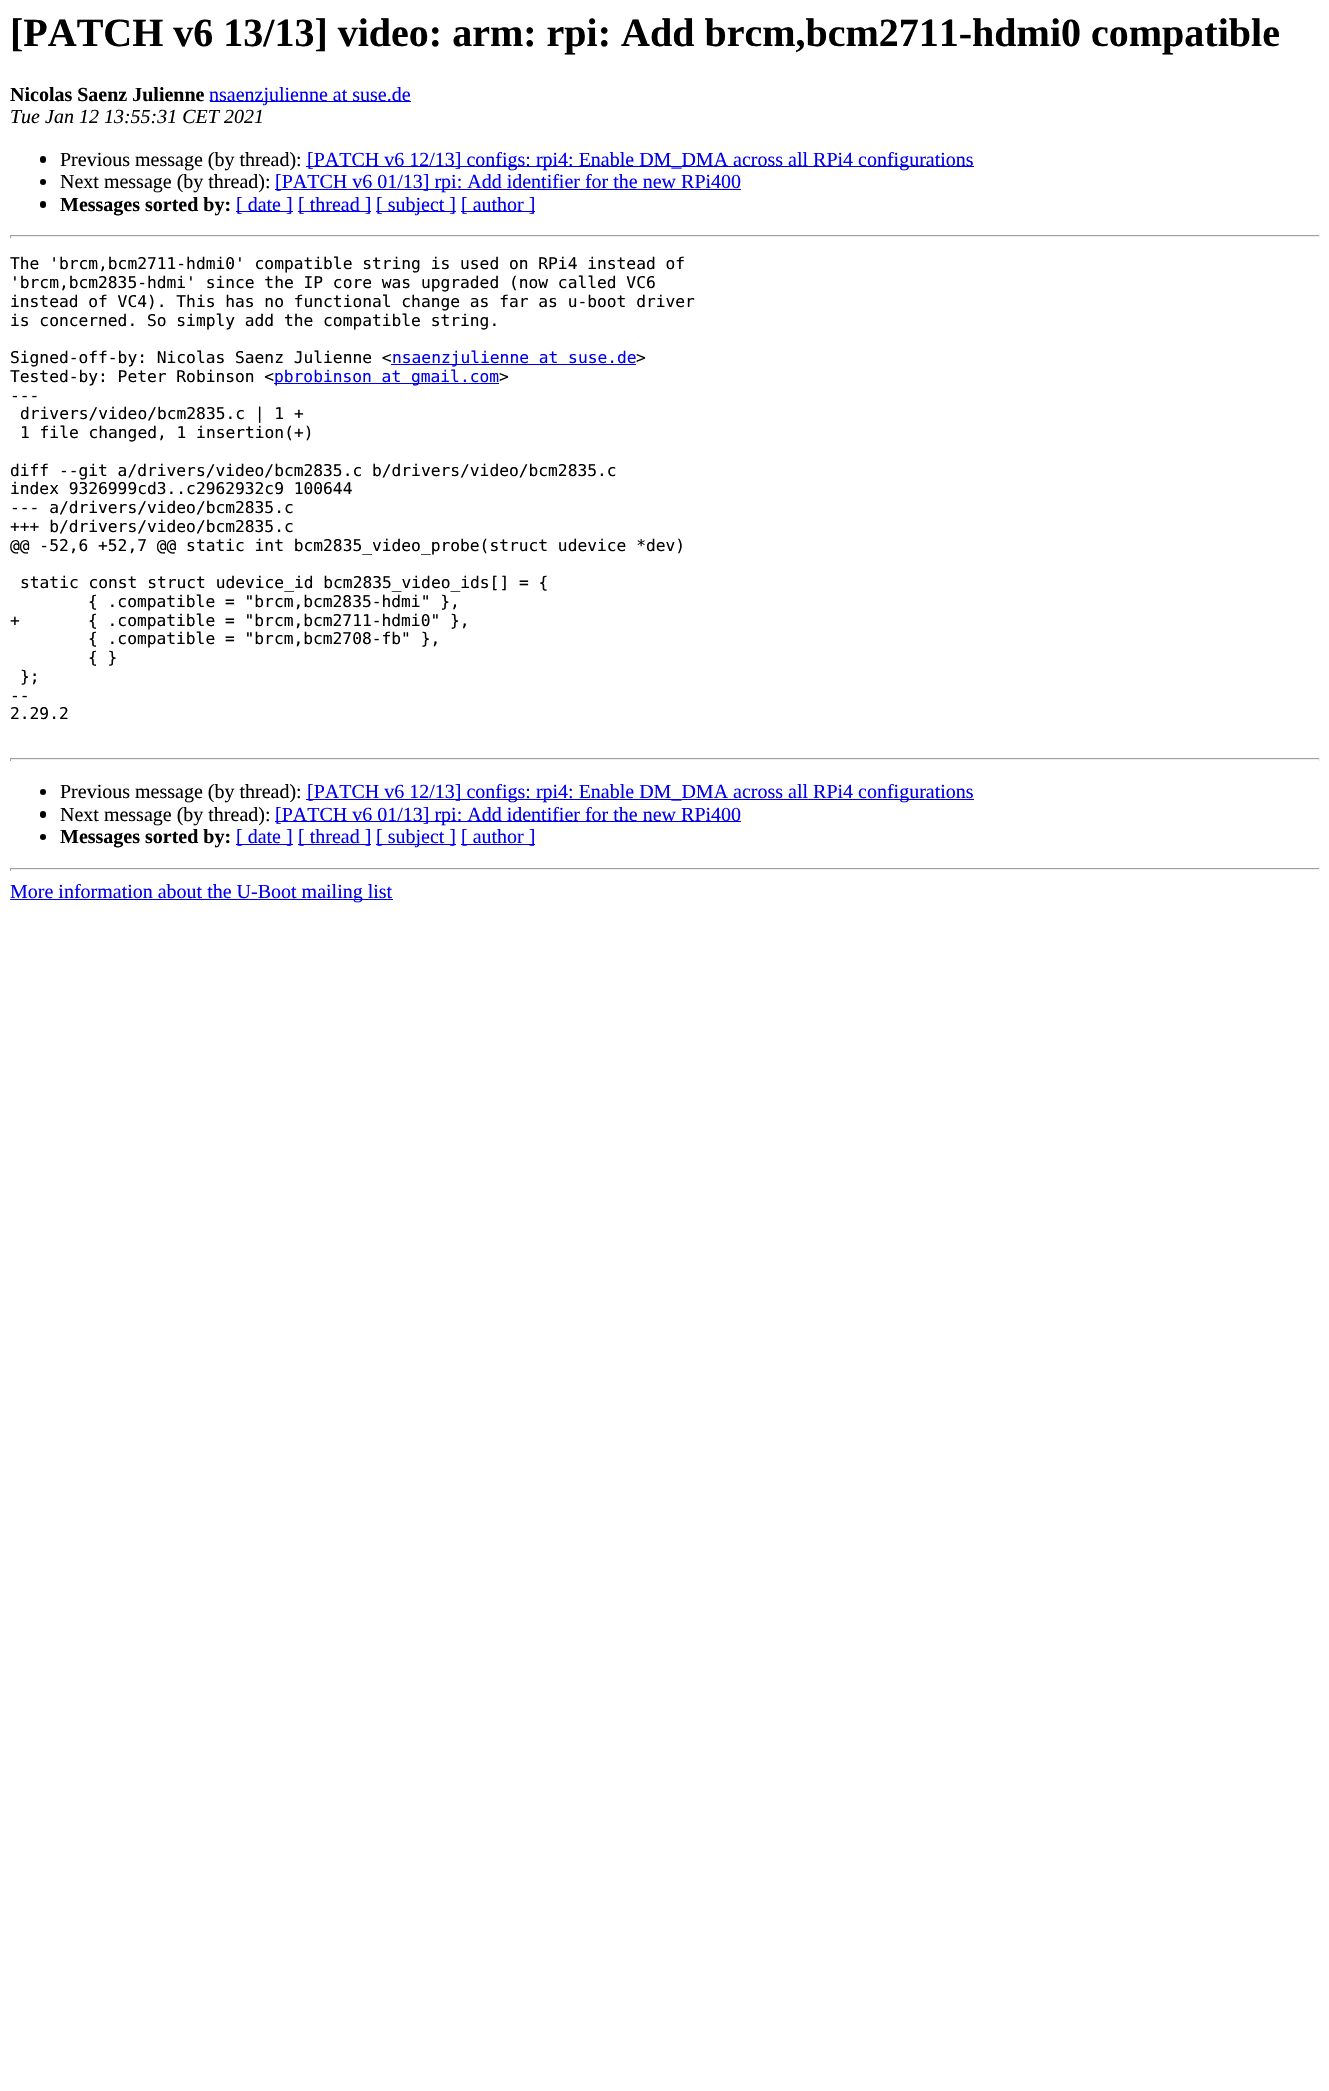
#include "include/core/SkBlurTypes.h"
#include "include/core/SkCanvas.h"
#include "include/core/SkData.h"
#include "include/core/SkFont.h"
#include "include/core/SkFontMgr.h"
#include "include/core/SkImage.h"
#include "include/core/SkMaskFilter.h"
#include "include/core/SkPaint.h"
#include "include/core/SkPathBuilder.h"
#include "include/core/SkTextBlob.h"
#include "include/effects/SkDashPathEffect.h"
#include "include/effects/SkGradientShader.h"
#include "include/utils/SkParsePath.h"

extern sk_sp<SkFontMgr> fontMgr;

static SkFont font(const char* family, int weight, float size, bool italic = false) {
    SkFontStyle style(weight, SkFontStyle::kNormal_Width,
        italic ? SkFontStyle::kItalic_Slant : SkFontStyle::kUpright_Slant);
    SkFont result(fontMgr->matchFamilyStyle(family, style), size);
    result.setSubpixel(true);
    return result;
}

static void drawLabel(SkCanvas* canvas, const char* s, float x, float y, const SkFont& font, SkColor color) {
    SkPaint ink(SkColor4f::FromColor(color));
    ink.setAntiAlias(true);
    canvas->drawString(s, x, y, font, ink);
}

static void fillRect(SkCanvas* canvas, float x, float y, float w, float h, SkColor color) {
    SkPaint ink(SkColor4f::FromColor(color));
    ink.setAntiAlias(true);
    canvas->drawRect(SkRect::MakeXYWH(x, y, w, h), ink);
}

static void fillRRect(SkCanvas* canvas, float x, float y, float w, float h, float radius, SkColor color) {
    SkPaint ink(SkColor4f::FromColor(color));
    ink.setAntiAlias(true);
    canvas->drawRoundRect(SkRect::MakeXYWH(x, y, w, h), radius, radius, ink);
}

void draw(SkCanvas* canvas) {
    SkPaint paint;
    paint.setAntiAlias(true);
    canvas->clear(0xFFFFFFFF);
    SkFont font1 = font("Liberation Serif", 700, 40);
    drawLabel(canvas, "[PATCH v6 13/13] video: arm: rpi: Add brcm,bcm2711-hdmi0 compatible", 10, 46, font1, 0xFF000000);
    SkFont font2 = font("Liberation Serif", 700, 20);
    drawLabel(canvas, "Nicolas Saenz Julienne", 10, 101, font2, 0xFF000000);
    fillRect(canvas, 210, 101, 201, 1, 0xFF0000EE);
    SkFont font3 = font("Liberation Serif", 400, 20);
    drawLabel(canvas, "nsaenzjulienne at suse.de", 209, 101, font3, 0xFF0000EE);
    SkFont font4 = font("Liberation Serif", 400, 20, true);
    drawLabel(canvas, "Tue Jan 12 13:55:31 CET 2021", 10, 123, font4, 0xFF000000);
    fillRRect(canvas, 40, 156, 6, 7, 3, 0xFF000000);
    drawLabel(canvas, "Previous message (by thread):", 60, 166, font3, 0xFF000000);
    fillRect(canvas, 306, 166, 668, 1, 0xFF0000EE);
    drawLabel(canvas, "[PATCH v6 12/13] configs: rpi4: Enable DM_DMA across all RPi4 configurations", 307, 166, font3, 0xFF0000EE);
    paint.setColor(0xFF000000);
    canvas->drawCircle(43, 182, 3, paint);
    drawLabel(canvas, "Next message (by thread):", 60, 188, font3, 0xFF000000);
    fillRect(canvas, 275, 189, 466, 1, 0xFF0000EE);
    drawLabel(canvas, "[PATCH v6 01/13] rpi: Add identifier for the new RPi400", 275, 188, font3, 0xFF0000EE);
    fillRRect(canvas, 40, 201, 6, 7, 3, 0xFF000000);
    drawLabel(canvas, "Messages sorted by:", 60, 211, font2, 0xFF000000);
    fillRect(canvas, 236, 211, 57, 1, 0xFF0000EE);
    drawLabel(canvas, "[ date ]", 236, 211, font3, 0xFF0000EE);
    fillRect(canvas, 298, 211, 73, 1, 0xFF0000EE);
    drawLabel(canvas, "[ thread ]", 298, 211, font3, 0xFF0000EE);
    fillRect(canvas, 376, 211, 80, 1, 0xFF0000EE);
    drawLabel(canvas, "[ subject ]", 376, 211, font3, 0xFF0000EE);
    fillRect(canvas, 461, 211, 74, 1, 0xFF0000EE);
    drawLabel(canvas, "[ author ]", 461, 211, font3, 0xFF0000EE);
    fillRect(canvas, 10, 235, 1310, 1, 0xFF9F9F9F);
    fillRect(canvas, 1319, 235, 1, 3, 0xFFEEEEEE);
    fillRect(canvas, 10, 236, 1310, 1, 0xFFEEEEEE);
    fillRect(canvas, 10, 235, 1, 3, 0xFF9F9F9F);
    SkFont font5 = font("DejaVu Sans Mono", 400, 16.25f);
    drawLabel(canvas, "The 'brcm,bcm2711-hdmi0' compatible string is used on RPi4 instead of", 10, 269, font5, 0xFF000000);
    drawLabel(canvas, "'brcm,bcm2835-hdmi' since the IP core was upgraded (now called VC6", 10, 288, font5, 0xFF000000);
    drawLabel(canvas, "instead of VC4). This has no functional change as far as u-boot driver", 10, 307, font5, 0xFF000000);
    drawLabel(canvas, "is concerned. So simply add the compatible string.", 10, 326, font5, 0xFF000000);
    drawLabel(canvas, "Signed-off-by: Nicolas Saenz Julienne <", 10, 363, font5, 0xFF000000);
    fillRect(canvas, 391, 364, 245, 1, 0xFF0000EE);
    drawLabel(canvas, "nsaenzjulienne at suse.de", 392, 363, font5, 0xFF0000EE);
    drawLabel(canvas, ">", 636, 363, font5, 0xFF000000);
    drawLabel(canvas, "Tested-by: Peter Robinson <", 10, 382, font5, 0xFF000000);
    fillRect(canvas, 274, 383, 225, 1, 0xFF0000EE);
    drawLabel(canvas, "pbrobinson at gmail.com", 274, 382, font5, 0xFF0000EE);
    drawLabel(canvas, ">", 499, 382, font5, 0xFF000000);
    drawLabel(canvas, "---", 10, 401, font5, 0xFF000000);
    drawLabel(canvas, "drivers/video/bcm2835.c | 1 +", 20, 419, font5, 0xFF000000);
    drawLabel(canvas, "1 file changed, 1 insertion(+)", 20, 438, font5, 0xFF000000);
    drawLabel(canvas, "diff --git a/drivers/video/bcm2835.c b/drivers/video/bcm2835.c", 10, 476, font5, 0xFF000000);
    drawLabel(canvas, "index 9326999cd3..c2962932c9 100644", 10, 494, font5, 0xFF000000);
    drawLabel(canvas, "--- a/drivers/video/bcm2835.c", 10, 513, font5, 0xFF000000);
    drawLabel(canvas, "+++ b/drivers/video/bcm2835.c", 10, 532, font5, 0xFF000000);
    drawLabel(canvas, "@@ -52,6 +52,7 @@ static int bcm2835_video_probe(struct udevice *dev)", 10, 551, font5, 0xFF000000);
    drawLabel(canvas, "static const struct udevice_id bcm2835_video_ids[] = {", 20, 588, font5, 0xFF000000);
    drawLabel(canvas, "{ .compatible = \"brcm,bcm2835-hdmi\" },", 88, 607, font5, 0xFF000000);
    drawLabel(canvas, "+", 10, 626, font5, 0xFF000000);
    drawLabel(canvas, "{ .compatible = \"brcm,bcm2711-hdmi0\" },", 88, 626, font5, 0xFF000000);
    drawLabel(canvas, "{ .compatible = \"brcm,bcm2708-fb\" },", 88, 644, font5, 0xFF000000);
    drawLabel(canvas, "{ }", 88, 663, font5, 0xFF000000);
    drawLabel(canvas, "};", 20, 682, font5, 0xFF000000);
    drawLabel(canvas, "--", 10, 701, font5, 0xFF000000);
    drawLabel(canvas, "2.29.2", 10, 719, font5, 0xFF000000);
    fillRect(canvas, 10, 758, 1310, 1, 0xFF9F9F9F);
    fillRect(canvas, 1319, 758, 1, 3, 0xFFEEEEEE);
    fillRect(canvas, 10, 759, 1310, 1, 0xFFEEEEEE);
    fillRect(canvas, 10, 758, 1, 3, 0xFF9F9F9F);
    canvas->drawCircle(43, 792, 3, paint);
    drawLabel(canvas, "Previous message (by thread):", 60, 798, font3, 0xFF000000);
    fillRect(canvas, 306, 799, 668, 1, 0xFF0000EE);
    drawLabel(canvas, "[PATCH v6 12/13] configs: rpi4: Enable DM_DMA across all RPi4 configurations", 307, 798, font3, 0xFF0000EE);
    fillRRect(canvas, 40, 811, 6, 7, 3, 0xFF000000);
    drawLabel(canvas, "Next message (by thread):", 60, 821, font3, 0xFF000000);
    fillRect(canvas, 275, 821, 466, 1, 0xFF0000EE);
    drawLabel(canvas, "[PATCH v6 01/13] rpi: Add identifier for the new RPi400", 275, 821, font3, 0xFF0000EE);
    canvas->drawCircle(43, 837, 3, paint);
    drawLabel(canvas, "Messages sorted by:", 60, 843, font2, 0xFF000000);
    fillRect(canvas, 236, 844, 57, 1, 0xFF0000EE);
    drawLabel(canvas, "[ date ]", 236, 843, font3, 0xFF0000EE);
    fillRect(canvas, 298, 844, 73, 1, 0xFF0000EE);
    drawLabel(canvas, "[ thread ]", 298, 843, font3, 0xFF0000EE);
    fillRect(canvas, 376, 844, 80, 1, 0xFF0000EE);
    drawLabel(canvas, "[ subject ]", 376, 843, font3, 0xFF0000EE);
    fillRect(canvas, 461, 844, 74, 1, 0xFF0000EE);
    drawLabel(canvas, "[ author ]", 461, 843, font3, 0xFF0000EE);
    fillRect(canvas, 10, 868, 1310, 1, 0xFF9F9F9F);
    fillRect(canvas, 1319, 868, 1, 3, 0xFFEEEEEE);
    fillRect(canvas, 10, 869, 1310, 1, 0xFFEEEEEE);
    fillRect(canvas, 10, 868, 1, 3, 0xFF9F9F9F);
    fillRect(canvas, 10, 899, 383, 1, 0xFF0000EE);
    drawLabel(canvas, "More information about the U-Boot mailing list", 10, 898, font3, 0xFF0000EE);
}
